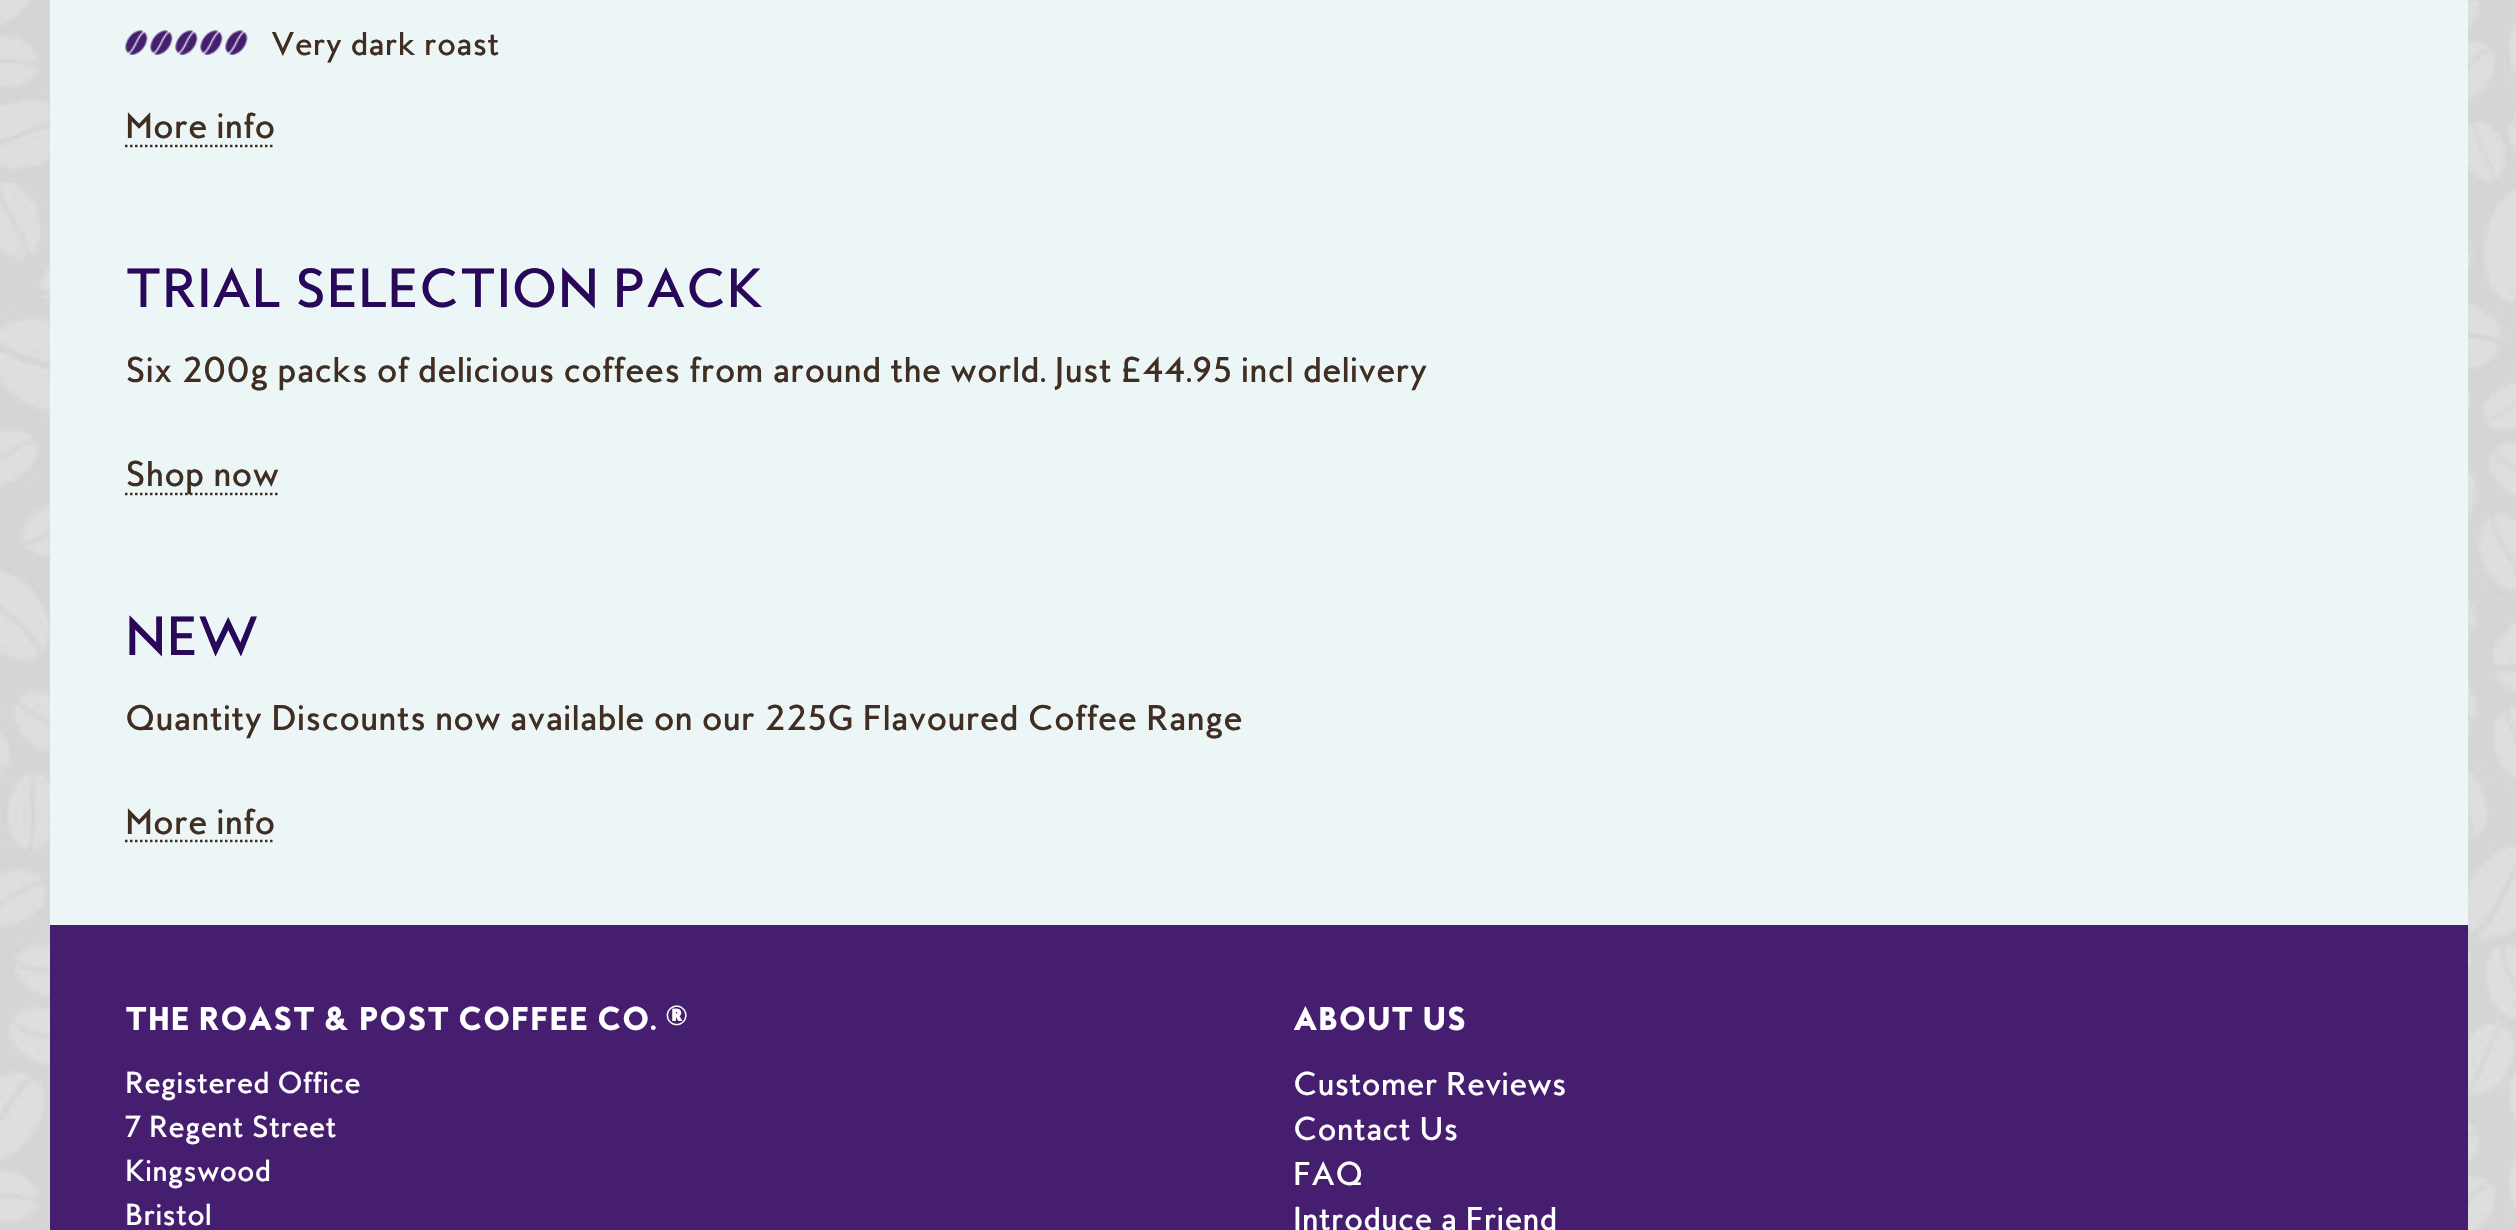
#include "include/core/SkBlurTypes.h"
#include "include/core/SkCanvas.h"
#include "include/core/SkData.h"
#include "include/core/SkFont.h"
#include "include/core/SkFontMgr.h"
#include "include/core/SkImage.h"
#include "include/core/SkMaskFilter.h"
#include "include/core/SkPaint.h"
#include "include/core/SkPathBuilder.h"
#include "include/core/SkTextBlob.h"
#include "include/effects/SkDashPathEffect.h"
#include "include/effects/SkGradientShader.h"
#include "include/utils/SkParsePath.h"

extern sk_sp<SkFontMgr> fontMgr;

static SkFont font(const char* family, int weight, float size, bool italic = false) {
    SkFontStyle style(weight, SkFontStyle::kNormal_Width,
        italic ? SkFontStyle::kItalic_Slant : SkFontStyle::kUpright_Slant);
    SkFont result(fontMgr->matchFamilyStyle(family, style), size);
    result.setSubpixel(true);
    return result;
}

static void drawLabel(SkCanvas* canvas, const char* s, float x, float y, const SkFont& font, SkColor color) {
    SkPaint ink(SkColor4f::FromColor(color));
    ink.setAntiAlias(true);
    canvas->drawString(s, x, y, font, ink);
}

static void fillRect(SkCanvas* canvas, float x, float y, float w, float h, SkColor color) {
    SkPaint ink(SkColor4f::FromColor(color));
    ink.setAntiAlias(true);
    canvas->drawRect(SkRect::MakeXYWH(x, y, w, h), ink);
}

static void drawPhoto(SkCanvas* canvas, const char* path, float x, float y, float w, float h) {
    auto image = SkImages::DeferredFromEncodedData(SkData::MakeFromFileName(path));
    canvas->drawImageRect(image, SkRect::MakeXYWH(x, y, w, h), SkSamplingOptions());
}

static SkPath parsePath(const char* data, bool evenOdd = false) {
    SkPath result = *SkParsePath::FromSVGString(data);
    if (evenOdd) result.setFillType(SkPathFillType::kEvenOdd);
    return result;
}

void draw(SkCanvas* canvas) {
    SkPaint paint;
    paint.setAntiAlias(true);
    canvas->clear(0xFFFFFFFF);
    drawPhoto(canvas, "assets/img1.png", 0, 0, 2516, 1230);
    fillRect(canvas, 50, 0, 2418, 925, 0xFFECF6F6);
    drawPhoto(canvas, "assets/img2.png", 125, 30, 23, 25);
    drawPhoto(canvas, "assets/img2.png", 150, 30, 23, 25);
    drawPhoto(canvas, "assets/img2.png", 175, 30, 23, 25);
    drawPhoto(canvas, "assets/img2.png", 200, 30, 23, 25);
    drawPhoto(canvas, "assets/img2.png", 225, 30, 23, 25);
    SkFont font1 = font("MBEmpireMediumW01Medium", 500, 30);
    drawLabel(canvas, "Very dark roast", 271, 55, font1, 0xFF412E22);
    SkFont font2 = font("MBEmpireMediumW01Medium", 500, 32.5f);
    drawLabel(canvas, "More info", 125, 138, font2, 0xFF412E22);
    paint.setStroke(true);
    paint.setStrokeWidth(2.5f);
    paint.setColor(0xFF412E22);
    paint.setPathEffect(SkDashPathEffect::Make({{2.5f, 2.5f}}, 0));
    canvas->drawPath(parsePath("M125 146H275"), paint);
    paint.setPathEffect(nullptr);
    SkFont font3 = font("MBEmpireMediumW01Medium", 500, 50);
    drawLabel(canvas, "TRIAL SELECTION PACK", 125, 307, font3, 0xFF29085A);
    drawLabel(canvas, "Six 200g packs of delicious coffees from around the world. Just £44.95 incl delivery", 125, 382, font2, 0xFF412E22);
    paint.setPathEffect(SkDashPathEffect::Make({{2.5f, 2.5f}}, 0));
    canvas->drawPath(parsePath("M125 494H280"), paint);
    paint.setPathEffect(nullptr);
    drawLabel(canvas, "Shop now", 125, 486, font2, 0xFF412E22);
    drawLabel(canvas, "NEW", 125, 655, font3, 0xFF29085A);
    drawLabel(canvas, "Quantity Discounts now available on our 225G Flavoured Coffee Range", 125, 730, font2, 0xFF412E22);
    drawLabel(canvas, "More info", 125, 834, font2, 0xFF412E22);
    paint.setPathEffect(SkDashPathEffect::Make({{2.5f, 2.5f}}, 0));
    canvas->drawPath(parsePath("M125 841H275"), paint);
    paint.setPathEffect(nullptr);
    fillRect(canvas, 50, 925, 2418, 305, 0xFF461E6F);
    SkFont font4 = font("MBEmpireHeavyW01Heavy", 900, 30);
    drawLabel(canvas, "THE ROAST & POST COFFEE CO.", 125, 1030, font4, 0xFFFFFFFF);
    SkFont font5 = font("MBEmpireHeavyW01Heavy", 900, 25);
    drawLabel(canvas, "®", 665, 1025, font5, 0xFFFFFFFF);
    SkFont font6 = font("MBEmpireMediumW01Medium", 500, 27.5f);
    drawLabel(canvas, "Registered Office", 125, 1093, font6, 0xFFFFFFFF);
    drawLabel(canvas, "7 Regent Street", 125, 1137, font6, 0xFFFFFFFF);
    drawLabel(canvas, "Kingswood", 125, 1181, font6, 0xFFFFFFFF);
    drawLabel(canvas, "Bristol", 125, 1225, font6, 0xFFFFFFFF);
    drawLabel(canvas, "ABOUT US", 1293, 1030, font4, 0xFFFFFFFF);
    drawLabel(canvas, "Customer Reviews", 1293, 1095, font1, 0xFFFFFFFF);
    drawLabel(canvas, "Contact Us", 1293, 1140, font1, 0xFFFFFFFF);
    drawLabel(canvas, "FAQ", 1293, 1185, font1, 0xFFFFFFFF);
    drawLabel(canvas, "Introduce a Friend", 1293, 1230, font1, 0xFFFFFFFF);
}
